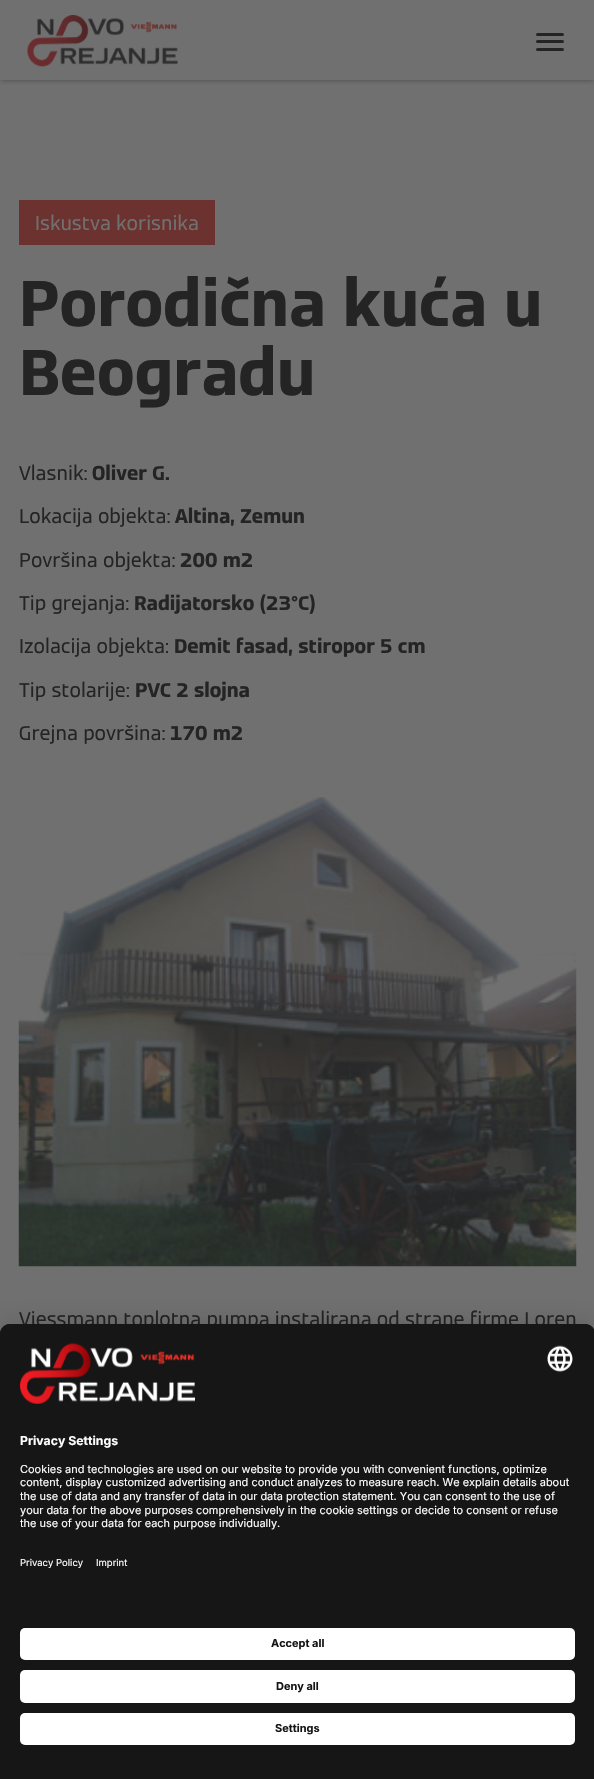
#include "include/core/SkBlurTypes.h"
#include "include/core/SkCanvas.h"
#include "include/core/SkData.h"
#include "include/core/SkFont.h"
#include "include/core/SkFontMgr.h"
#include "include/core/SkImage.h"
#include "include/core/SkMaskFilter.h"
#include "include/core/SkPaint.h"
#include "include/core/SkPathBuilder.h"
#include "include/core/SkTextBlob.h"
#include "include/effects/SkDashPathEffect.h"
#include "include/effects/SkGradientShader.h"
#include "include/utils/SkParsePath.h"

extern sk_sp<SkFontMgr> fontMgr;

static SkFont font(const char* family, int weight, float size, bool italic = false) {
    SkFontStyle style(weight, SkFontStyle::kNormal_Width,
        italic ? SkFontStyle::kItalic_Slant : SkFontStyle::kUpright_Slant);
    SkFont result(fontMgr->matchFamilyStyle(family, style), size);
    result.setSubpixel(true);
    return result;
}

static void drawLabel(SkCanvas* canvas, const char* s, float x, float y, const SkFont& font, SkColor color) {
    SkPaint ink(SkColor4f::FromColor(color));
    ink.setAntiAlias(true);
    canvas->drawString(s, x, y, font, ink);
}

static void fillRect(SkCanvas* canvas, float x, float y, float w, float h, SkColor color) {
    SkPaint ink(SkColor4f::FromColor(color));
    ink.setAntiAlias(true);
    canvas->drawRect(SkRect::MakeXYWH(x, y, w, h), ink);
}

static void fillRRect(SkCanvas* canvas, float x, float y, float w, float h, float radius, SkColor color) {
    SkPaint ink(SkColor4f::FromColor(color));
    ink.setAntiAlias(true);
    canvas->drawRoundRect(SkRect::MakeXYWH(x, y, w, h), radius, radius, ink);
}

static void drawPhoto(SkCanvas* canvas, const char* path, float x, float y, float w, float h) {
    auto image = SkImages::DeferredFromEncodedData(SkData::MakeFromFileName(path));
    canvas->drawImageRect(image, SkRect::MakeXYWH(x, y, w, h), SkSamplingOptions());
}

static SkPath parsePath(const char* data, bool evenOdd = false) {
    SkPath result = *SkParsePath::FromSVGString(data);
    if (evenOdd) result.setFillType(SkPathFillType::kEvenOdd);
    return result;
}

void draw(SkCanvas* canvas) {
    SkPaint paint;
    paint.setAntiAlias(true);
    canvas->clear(0xFF707070);
    canvas->save();
    canvas->clipRect(SkRect::MakeXYWH(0, 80, 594, 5));
    paint.setColor(0x80242424);
    paint.setMaskFilter(SkMaskFilter::MakeBlur(kNormal_SkBlurStyle, 3));
    canvas->drawRect(SkRect::MakeXYWH(0, 0, 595, 80), paint);
    paint.setMaskFilter(nullptr);
    canvas->restore();
    drawPhoto(canvas, "assets/img1.png", 27, 15, 151, 52);
    fillRRect(canvas, 536, 33, 28, 3, 1.5f, 0xFF242424);
    fillRRect(canvas, 536, 40, 28, 3, 1.5f, 0xFF242424);
    fillRRect(canvas, 536, 48, 28, 3, 1.5f, 0xFF242424);
    fillRect(canvas, 19, 200, 196, 45, 0xFF6B322F);
    SkFont font1 = font("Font", 400, 19.25f);
    drawLabel(canvas, "Iskustva korisnika", 35, 230, font1, 0xFF707070);
    SkFont font2 = font("Font", 700, 62.5f);
    drawLabel(canvas, "Porodična kuća u", 19, 326, font2, 0xFF242424);
    drawLabel(canvas, "Beogradu", 19, 395, font2, 0xFF242424);
    drawLabel(canvas, "Vlasnik:", 19, 480, font1, 0xFF242424);
    SkFont font3 = font("Font", 700, 19.25f);
    drawLabel(canvas, "Oliver G.", 92, 480, font3, 0xFF242424);
    drawLabel(canvas, "Lokacija objekta:", 19, 523, font1, 0xFF242424);
    drawLabel(canvas, "Altina, Zemun", 175, 523, font3, 0xFF242424);
    drawLabel(canvas, "Površina objekta:", 19, 567, font1, 0xFF242424);
    drawLabel(canvas, "200 m2", 180, 567, font3, 0xFF242424);
    drawLabel(canvas, "Tip grejanja:", 19, 610, font1, 0xFF242424);
    drawLabel(canvas, "Radijatorsko (23°C)", 134, 610, font3, 0xFF242424);
    drawLabel(canvas, "Izolacija objekta:", 19, 653, font1, 0xFF242424);
    drawLabel(canvas, "Demit fasad, stiropor 5 cm", 174, 653, font3, 0xFF242424);
    drawLabel(canvas, "Tip stolarije:", 19, 697, font1, 0xFF242424);
    drawLabel(canvas, "PVC 2 slojna", 135, 697, font3, 0xFF242424);
    drawLabel(canvas, "Grejna površina:", 19, 740, font1, 0xFF242424);
    drawLabel(canvas, "170 m2", 170, 740, font3, 0xFF242424);
    drawPhoto(canvas, "assets/img2.png", 18, 797, 559, 470);
    drawLabel(canvas, "Viessmann toplotna pumpa instalirana od strane firme Loren", 19, 1326, font1, 0xFF242424);
    paint.setColor(0x38000000);
    paint.setMaskFilter(SkMaskFilter::MakeBlur(kNormal_SkBlurStyle, 16));
    canvas->drawRoundRect(SkRect::MakeXYWH(0, 1330, 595, 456), 10, 10, paint);
    paint.setMaskFilter(nullptr);
    paint.setColor(0xFF161616);
    canvas->drawPath(parsePath("M10 1324H585C590.5 1324 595 1328.5 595 1334V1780H0V1334C0 1328.5 4.5 1324 10 1324Z"), paint);
    canvas->drawPath(parsePath("M10 1324H585C590.5 1324 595 1328.5 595 1334V1613H0V1334C0 1328.5 4.5 1324 10 1324Z"), paint);
    drawPhoto(canvas, "assets/img3.png", 20, 1343, 175, 61);
    drawPhoto(canvas, "assets/img4.png", 547, 1345, 26, 27);
    SkFont font4 = font("Inter", 700, 12.25f);
    drawLabel(canvas, "Privacy Settings", 20, 1445, font4, 0xFFFFFFFF);
    SkFont font5 = font("Inter", 400, 10.95f);
    drawLabel(canvas, "Cookies and technologies are used on our website to provide you with convenient functions, optimize", 20, 1473, font5, 0xFFFFFFFF);
    drawLabel(canvas, "content, display customized advertising and conduct analyzes to measure reach. We explain details about", 20, 1486, font5, 0xFFFFFFFF);
    drawLabel(canvas, "the use of data and any transfer of data in our data protection statement. You can consent to the use of", 20, 1500, font5, 0xFFFFFFFF);
    drawLabel(canvas, "your data for the above purposes comprehensively in the cookie settings or decide to consent or refuse", 20, 1514, font5, 0xFFFFFFFF);
    drawLabel(canvas, "the use of your data for each purpose individually.", 20, 1527, font5, 0xFFFFFFFF);
    SkFont font6 = font("Inter", 400, 9.5f);
    drawLabel(canvas, "Privacy Policy", 20, 1566, font6, 0xFFFFFFFF);
    drawLabel(canvas, "Imprint", 96, 1566, font6, 0xFFFFFFFF);
    fillRRect(canvas, 20, 1628, 555, 32, 5, 0xFFFFFFFF);
    SkFont font7 = font("Inter", 700, 10.95f);
    drawLabel(canvas, "Accept all", 271, 1647, font7, 0xFF161616);
    fillRRect(canvas, 20, 1670, 555, 33, 5, 0xFFFFFFFF);
    drawLabel(canvas, "Deny all", 276, 1690, font7, 0xFF161616);
    fillRRect(canvas, 20, 1713, 555, 32, 5, 0xFFFFFFFF);
    drawLabel(canvas, "Settings", 275, 1732, font7, 0xFF161616);
}
